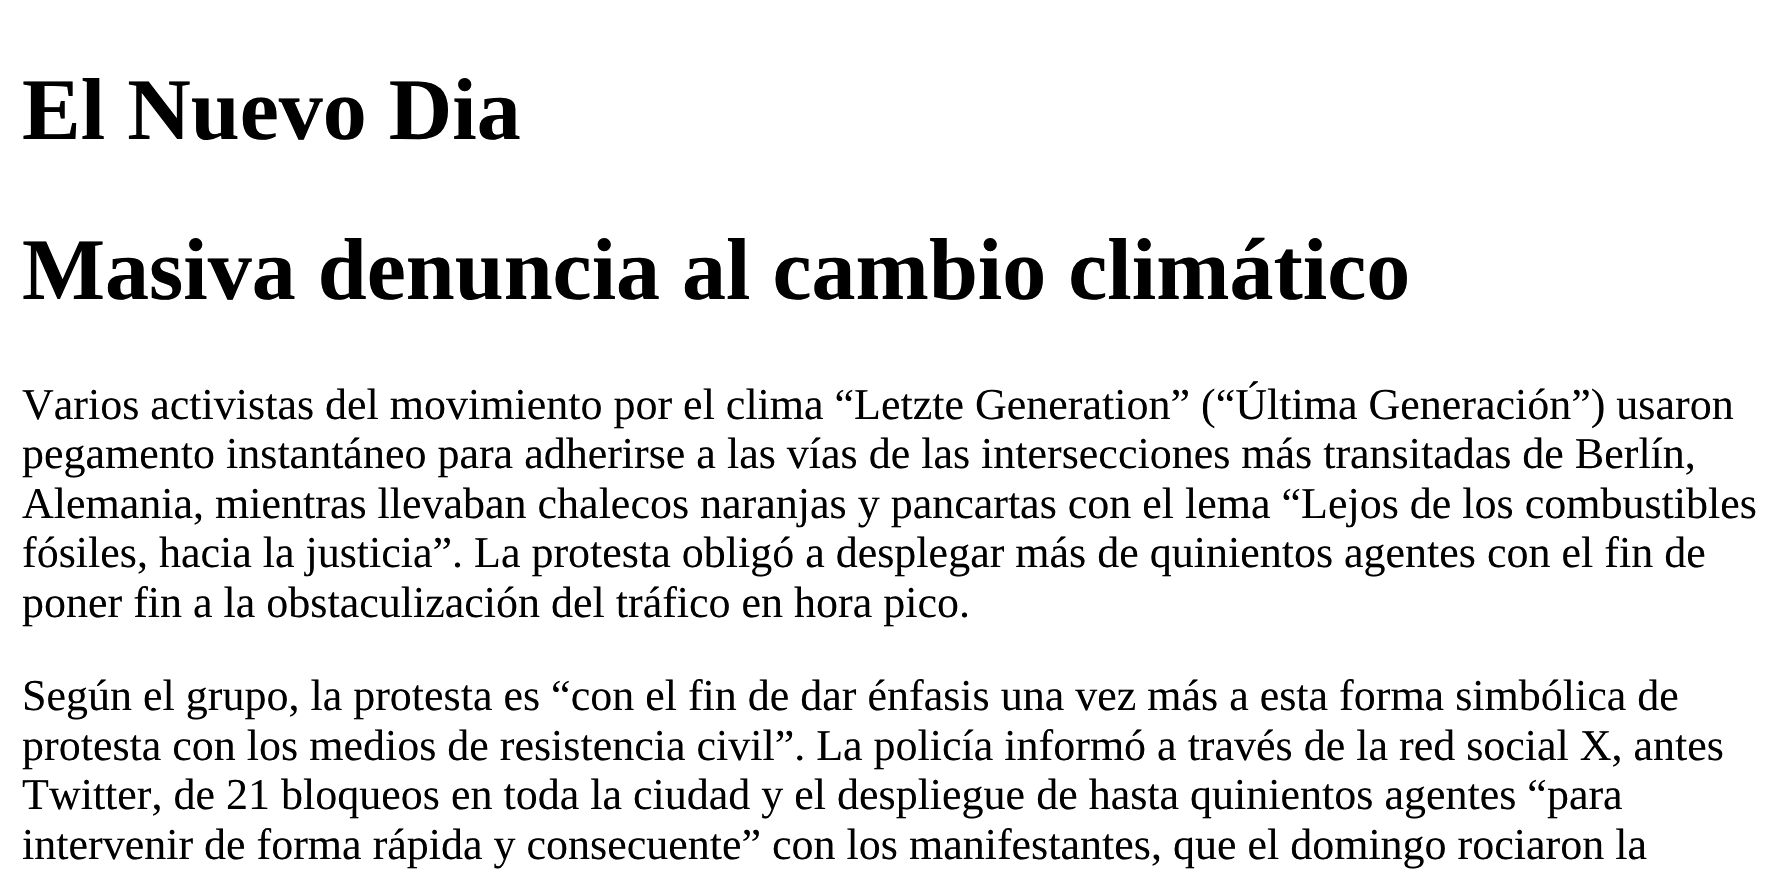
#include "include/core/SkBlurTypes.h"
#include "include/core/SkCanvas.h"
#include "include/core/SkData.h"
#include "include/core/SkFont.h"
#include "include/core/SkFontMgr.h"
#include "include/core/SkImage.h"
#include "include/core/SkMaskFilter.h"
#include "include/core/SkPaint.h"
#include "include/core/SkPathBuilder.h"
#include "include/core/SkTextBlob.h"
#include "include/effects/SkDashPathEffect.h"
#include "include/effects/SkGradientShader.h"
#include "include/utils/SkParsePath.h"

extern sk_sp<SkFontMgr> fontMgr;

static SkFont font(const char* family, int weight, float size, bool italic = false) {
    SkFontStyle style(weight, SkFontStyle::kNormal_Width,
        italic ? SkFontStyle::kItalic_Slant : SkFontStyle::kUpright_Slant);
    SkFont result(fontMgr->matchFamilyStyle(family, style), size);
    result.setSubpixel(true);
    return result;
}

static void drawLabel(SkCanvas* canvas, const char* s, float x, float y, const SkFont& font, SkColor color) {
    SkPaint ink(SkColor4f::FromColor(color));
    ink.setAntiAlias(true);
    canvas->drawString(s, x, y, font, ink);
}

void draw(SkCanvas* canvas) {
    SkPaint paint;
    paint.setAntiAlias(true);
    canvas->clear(0xFFFFFFFF);
    SkFont font1 = font("Liberation Serif", 700, 88);
    drawLabel(canvas, "El Nuevo Dia", 22, 139, font1, 0xFF000000);
    drawLabel(canvas, "Masiva denuncia al cambio climático", 22, 299, font1, 0xFF000000);
    SkFont font2 = font("Liberation Serif", 400, 44);
    drawLabel(canvas, "Varios activistas del movimiento por el clima “Letzte Generation” (“Última Generación”) usaron", 22, 419, font2, 0xFF000000);
    drawLabel(canvas, "pegamento instantáneo para adherirse a las vías de las intersecciones más transitadas de Berlín,", 22, 468, font2, 0xFF000000);
    drawLabel(canvas, "Alemania, mientras llevaban chalecos naranjas y pancartas con el lema “Lejos de los combustibles", 22, 518, font2, 0xFF000000);
    drawLabel(canvas, "fósiles, hacia la justicia”. La protesta obligó a desplegar más de quinientos agentes con el fin de", 22, 567, font2, 0xFF000000);
    drawLabel(canvas, "poner fin a la obstaculización del tráfico en hora pico.", 22, 617, font2, 0xFF000000);
    drawLabel(canvas, "Según el grupo, la protesta es “con el fin de dar énfasis una vez más a esta forma simbólica de", 22, 710, font2, 0xFF000000);
    drawLabel(canvas, "protesta con los medios de resistencia civil”. La policía informó a través de la red social X, antes", 22, 760, font2, 0xFF000000);
    drawLabel(canvas, "Twitter, de 21 bloqueos en toda la ciudad y el despliegue de hasta quinientos agentes “para", 22, 809, font2, 0xFF000000);
    drawLabel(canvas, "intervenir de forma rápida y consecuente” con los manifestantes, que el domingo rociaron la", 22, 859, font2, 0xFF000000);
}
